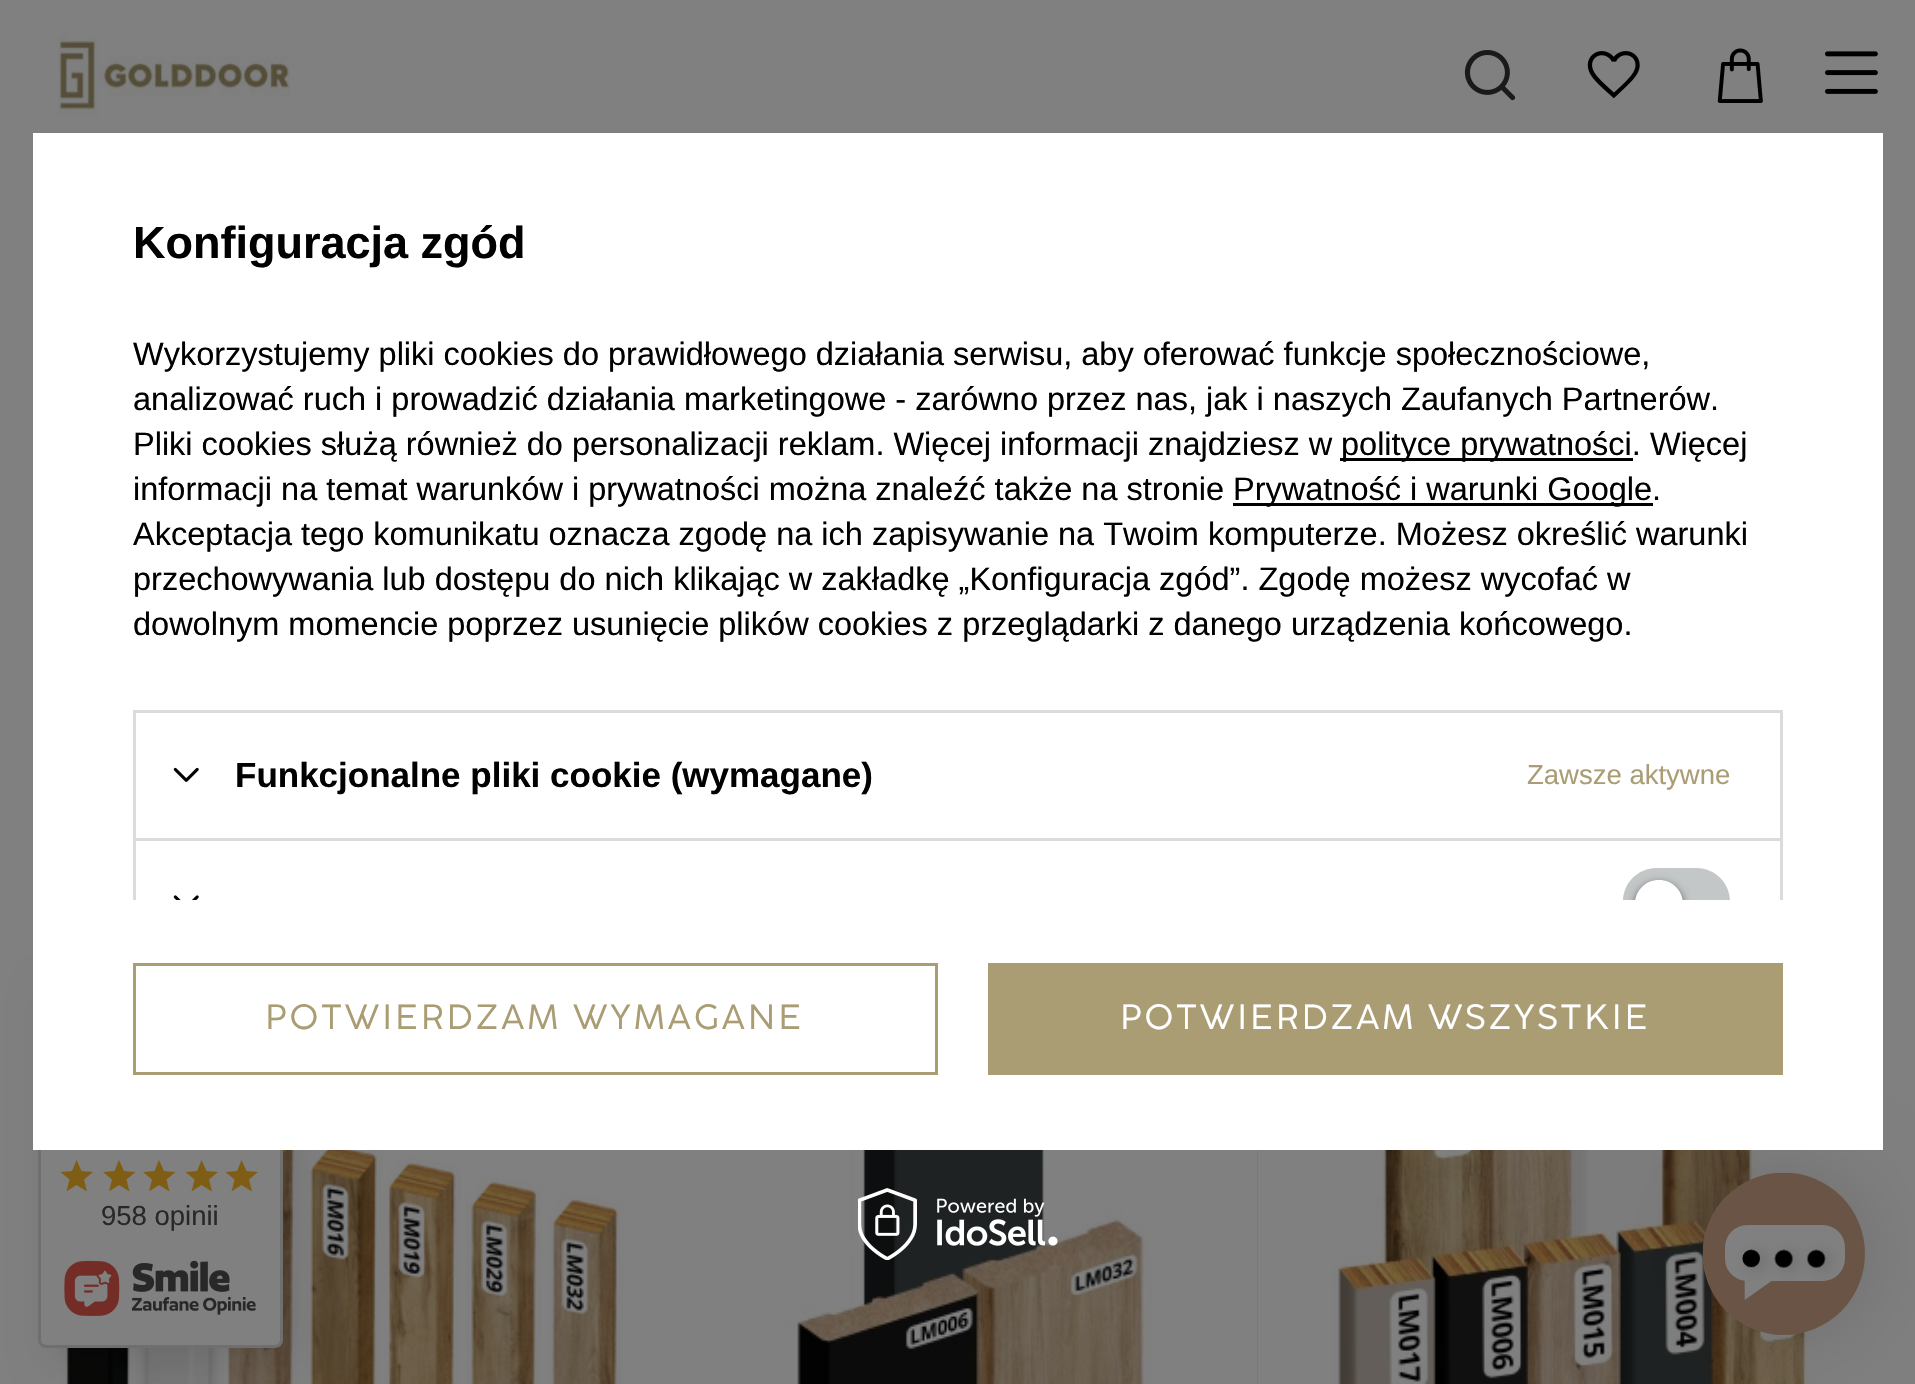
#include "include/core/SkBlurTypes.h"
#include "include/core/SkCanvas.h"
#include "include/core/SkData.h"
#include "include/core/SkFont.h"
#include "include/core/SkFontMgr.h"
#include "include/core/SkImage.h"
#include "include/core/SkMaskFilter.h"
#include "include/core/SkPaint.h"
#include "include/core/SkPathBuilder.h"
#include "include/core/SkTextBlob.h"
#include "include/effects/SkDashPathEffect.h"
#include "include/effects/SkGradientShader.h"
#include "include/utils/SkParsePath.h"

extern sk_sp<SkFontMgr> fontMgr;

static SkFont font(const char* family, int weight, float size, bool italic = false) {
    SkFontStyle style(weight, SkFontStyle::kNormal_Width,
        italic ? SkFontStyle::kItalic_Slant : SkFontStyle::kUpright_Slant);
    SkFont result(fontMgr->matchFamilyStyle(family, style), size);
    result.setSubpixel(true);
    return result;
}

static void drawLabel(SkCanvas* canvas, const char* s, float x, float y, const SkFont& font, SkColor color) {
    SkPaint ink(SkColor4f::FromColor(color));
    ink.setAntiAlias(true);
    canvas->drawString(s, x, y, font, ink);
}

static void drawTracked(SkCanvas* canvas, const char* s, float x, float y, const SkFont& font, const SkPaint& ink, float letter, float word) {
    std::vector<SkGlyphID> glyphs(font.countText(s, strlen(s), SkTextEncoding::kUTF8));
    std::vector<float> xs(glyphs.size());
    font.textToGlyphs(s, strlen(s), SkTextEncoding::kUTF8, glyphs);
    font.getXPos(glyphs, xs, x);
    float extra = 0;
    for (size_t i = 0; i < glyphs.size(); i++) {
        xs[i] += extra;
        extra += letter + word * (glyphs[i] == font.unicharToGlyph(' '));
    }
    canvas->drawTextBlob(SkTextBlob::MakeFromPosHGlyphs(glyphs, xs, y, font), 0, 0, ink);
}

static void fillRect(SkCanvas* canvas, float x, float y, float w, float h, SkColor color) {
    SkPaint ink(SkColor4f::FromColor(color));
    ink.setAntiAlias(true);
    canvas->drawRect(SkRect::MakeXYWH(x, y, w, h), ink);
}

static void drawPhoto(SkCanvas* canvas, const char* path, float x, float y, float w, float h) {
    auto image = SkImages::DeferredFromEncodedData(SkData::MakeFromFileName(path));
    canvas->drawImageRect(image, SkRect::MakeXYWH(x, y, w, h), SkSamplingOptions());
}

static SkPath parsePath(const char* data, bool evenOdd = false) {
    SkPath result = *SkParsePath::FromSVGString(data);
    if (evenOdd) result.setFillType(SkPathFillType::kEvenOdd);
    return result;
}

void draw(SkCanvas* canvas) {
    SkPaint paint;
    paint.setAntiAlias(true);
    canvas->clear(0xFF808080);
    drawPhoto(canvas, "assets/img1.png", 58, 35, 232, 81);
    drawPhoto(canvas, "assets/img2.png", 1464, 50, 52, 51);
    drawPhoto(canvas, "assets/img3.png", 1587, 51, 53, 48);
    drawPhoto(canvas, "assets/img4.png", 1717, 48, 46, 55);
    drawPhoto(canvas, "assets/img5.png", 1825, 51, 53, 43);
    drawPhoto(canvas, "assets/img6.png", 40, 1150, 600, 234);
    fillRect(canvas, 1257, 1150, 1, 234, 0xFF797979);
    drawPhoto(canvas, "assets/img7.png", 658, 1150, 599, 234);
    drawPhoto(canvas, "assets/img8.png", 1275, 1150, 600, 234);
    paint.setColor(0x1A000000);
    paint.setMaskFilter(SkMaskFilter::MakeBlur(kNormal_SkBlurStyle, 19));
    canvas->drawRoundRect(SkRect::MakeXYWH(50, 993, 245, 367), 8, 8, paint);
    paint.setMaskFilter(nullptr);
    paint.setColor(0xFF808080);
    canvas->drawRoundRect(SkRect::MakeXYWH(39.5f, 981.5f, 242, 365), 6.5f, 6.5f, paint);
    paint.setStroke(true);
    paint.setStrokeWidth(3);
    paint.setColor(0xFF6F6F6F);
    canvas->drawRoundRect(SkRect::MakeXYWH(39.5f, 981.5f, 242, 365), 6.5f, 6.5f, paint);
    paint.setStroke(false);
    paint.setColor(0x26000000);
    paint.setMaskFilter(SkMaskFilter::MakeBlur(kNormal_SkBlurStyle, 44));
    canvas->drawRoundRect(SkRect::MakeXYWH(1703, 1173, 162, 162), 81, 81, paint);
    paint.setMaskFilter(nullptr);
    fillRect(canvas, 33, 133, 1850, 1017, 0xFFFFFFFF);
    SkFont font1 = font("Liberation Sans", 700, 45);
    drawLabel(canvas, "Konfiguracja zgód", 133, 258, font1, 0xFF000000);
    SkFont font2 = font("Liberation Sans", 400, 32.5f);
    drawLabel(canvas, "Wykorzystujemy pliki cookies do prawidłowego działania serwisu, aby oferować funkcje społecznościowe,", 133, 365, font2, 0xFF000000);
    drawLabel(canvas, "analizować ruch i prowadzić działania marketingowe - zarówno przez nas, jak i naszych Zaufanych Partnerów.", 133, 410, font2, 0xFF000000);
    drawLabel(canvas, "Pliki cookies służą również do personalizacji reklam. Więcej informacji znajdziesz w", 133, 455, font2, 0xFF000000);
    fillRect(canvas, 1340, 458, 293, 3, 0xFF000000);
    drawLabel(canvas, "polityce prywatności. Więcej", 1341, 455, font2, 0xFF000000);
    drawLabel(canvas, "informacji na temat warunków i prywatności można znaleźć także na stronie", 133, 500, font2, 0xFF000000);
    fillRect(canvas, 1233, 503, 420, 3, 0xFF000000);
    drawLabel(canvas, "Prywatność i warunki Google.", 1233, 500, font2, 0xFF000000);
    drawLabel(canvas, "Akceptacja tego komunikatu oznacza zgodę na ich zapisywanie na Twoim komputerze. Możesz określić warunki", 133, 545, font2, 0xFF000000);
    drawLabel(canvas, "przechowywania lub dostępu do nich klikając w zakładkę „Konfiguracja zgód”. Zgodę możesz wycofać w", 133, 590, font2, 0xFF000000);
    drawLabel(canvas, "dowolnym momencie poprzez usunięcie plików cookies z przeglądarki z danego urządzenia końcowego.", 133, 635, font2, 0xFF000000);
    fillRect(canvas, 133, 710, 1650, 3, 0xFFDBDBDB);
    fillRect(canvas, 1780, 710, 3, 128, 0xFFDBDBDB);
    fillRect(canvas, 133, 710, 3, 128, 0xFFDBDBDB);
    drawPhoto(canvas, "assets/img9.png", 173, 767, 26, 15);
    SkFont font3 = font("Liberation Sans", 700, 35);
    drawLabel(canvas, "Funkcjonalne pliki cookie (wymagane)", 235, 787, font3, 0xFF000000);
    SkFont font4 = font("Liberation Sans", 400, 27.5f);
    drawLabel(canvas, "Zawsze aktywne", 1527, 784, font4, 0xFFAA9D74);
    fillRect(canvas, 133, 838, 1650, 3, 0xFFDBDBDB);
    fillRect(canvas, 1780, 838, 3, 62, 0xFFDBDBDB);
    fillRect(canvas, 133, 838, 3, 62, 0xFFDBDBDB);
    drawPhoto(canvas, "assets/img10.png", 173, 895, 26, 5);
    paint.setColor(0xFFC4C7C8);
    canvas->drawPath(parsePath("M1656.5 868H1696.5C1715 868 1730 883 1730 901.5V900H1623V901.5C1623 883 1638 868 1656.5 868Z"), paint);
    canvas->save();
    canvas->clipRect(SkRect::MakeXYWH(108, 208, 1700, 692));
    paint.setColor(0x8F000000);
    paint.setMaskFilter(SkMaskFilter::MakeBlur(kNormal_SkBlurStyle, 4));
    canvas->drawRoundRect(SkRect::MakeXYWH(1635, 883, 48, 47), 23.5f, 23.5f, paint);
    paint.setMaskFilter(nullptr);
    canvas->restore();
    paint.setColor(0xFFFFFFFF);
    canvas->drawPath(parsePath("M1659 880C1672.5 880 1683 890.5 1683 904V900H1635V904C1635 890.5 1645.5 880 1659 880Z"), paint);
    paint.setStroke(true);
    paint.setColor(0xFFAA9D74);
    canvas->drawRect(SkRect::MakeXYWH(134.5f, 964.5f, 802, 109), paint);
    SkFont font5 = font("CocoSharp", 400, 35);
    paint.setStroke(false);
    drawTracked(canvas, "POTWIERDZAM WYMAGANE", 265, 1029, font5, paint, 3, 0);
    fillRect(canvas, 988, 963, 795, 112, 0xFFAA9D74);
    paint.setColor(0xFFFFFFFF);
    drawTracked(canvas, "POTWIERDZAM WSZYSTKIE", 1120, 1029, font5, paint, 3, 0);
    drawPhoto(canvas, "assets/img11.png", 858, 1188, 200, 72);
    paint.setColor(0xFF805D14);
    canvas->drawPath(parsePath("M66.5 1191.5L69.5 1179.5L60.5 1172L72 1171L76.5 1160L81.5 1171L93 1172L84 1179.5L87 1191.5L76.5 1185Z"), paint);
    canvas->drawPath(parsePath("M109 1191.5L112 1179.5L103 1172L114.5 1171L119 1160L124 1171L135.5 1172L126.5 1179.5L129.5 1191.5L119 1185Z"), paint);
    canvas->drawPath(parsePath("M149 1191.5L152 1179.5L143 1172L154.5 1171L159 1160L164 1171L175.5 1172L166.5 1179.5L169.5 1191.5L159 1185Z"), paint);
    canvas->drawPath(parsePath("M191.5 1191.5L194.5 1179.5L185.5 1172L197 1171L201.5 1160L206.5 1171L218 1172L209 1179.5L212 1191.5L201.5 1185Z"), paint);
    canvas->drawPath(parsePath("M231.5 1191.5L234.5 1179.5L225.5 1172L237 1171L241.5 1160L246.5 1171L258 1172L249 1179.5L252 1191.5L241.5 1185Z"), paint);
    drawLabel(canvas, "958 opinii", 101, 1225, font4, 0xFF282828);
    drawPhoto(canvas, "assets/img12.png", 64, 1260, 192, 56);
    drawPhoto(canvas, "assets/img13.png", 1702, 1172, 163, 163);
}
